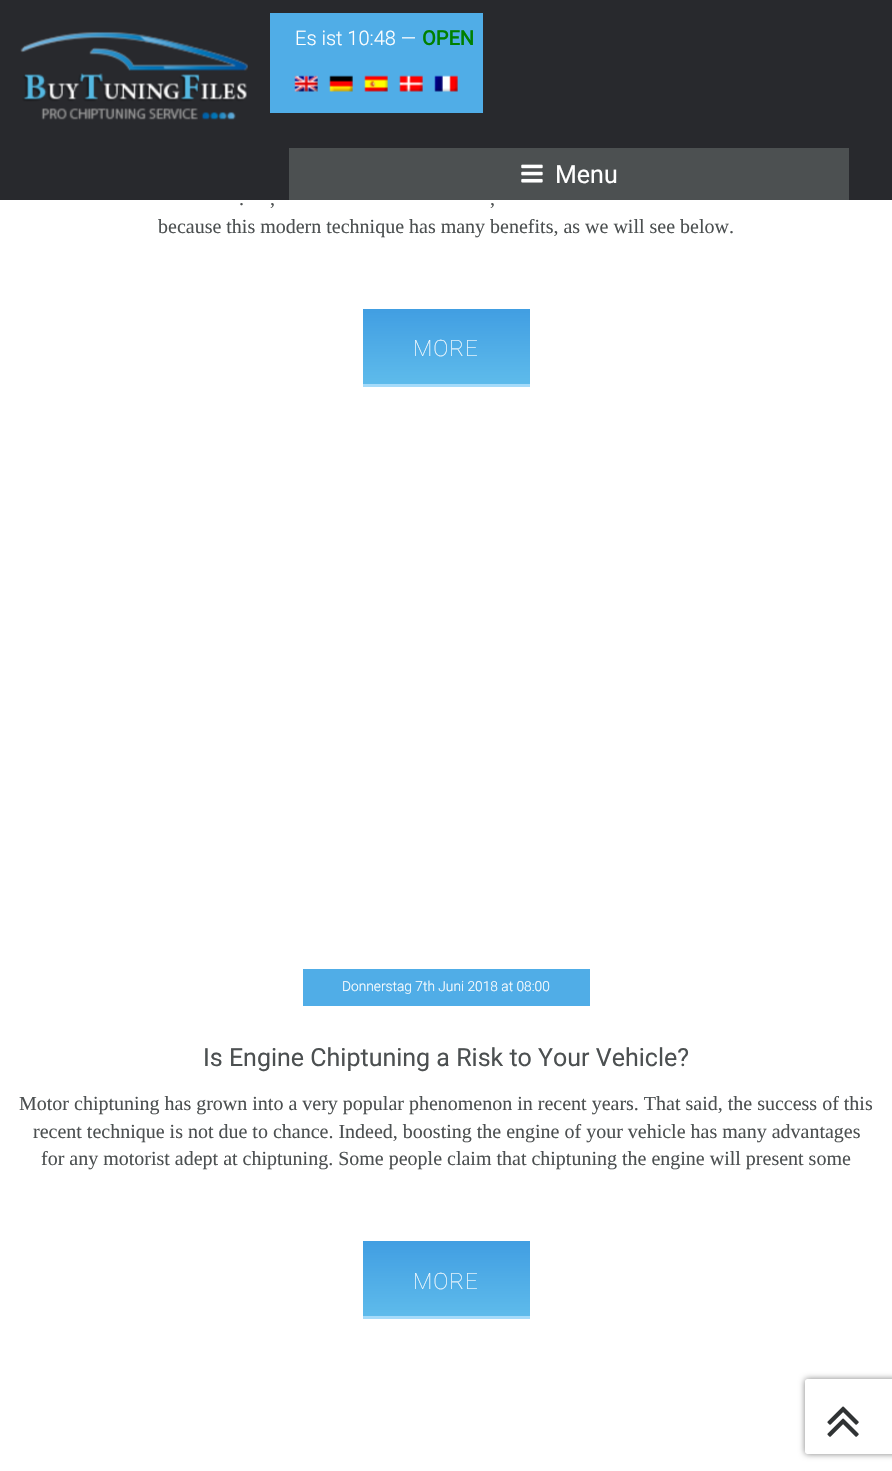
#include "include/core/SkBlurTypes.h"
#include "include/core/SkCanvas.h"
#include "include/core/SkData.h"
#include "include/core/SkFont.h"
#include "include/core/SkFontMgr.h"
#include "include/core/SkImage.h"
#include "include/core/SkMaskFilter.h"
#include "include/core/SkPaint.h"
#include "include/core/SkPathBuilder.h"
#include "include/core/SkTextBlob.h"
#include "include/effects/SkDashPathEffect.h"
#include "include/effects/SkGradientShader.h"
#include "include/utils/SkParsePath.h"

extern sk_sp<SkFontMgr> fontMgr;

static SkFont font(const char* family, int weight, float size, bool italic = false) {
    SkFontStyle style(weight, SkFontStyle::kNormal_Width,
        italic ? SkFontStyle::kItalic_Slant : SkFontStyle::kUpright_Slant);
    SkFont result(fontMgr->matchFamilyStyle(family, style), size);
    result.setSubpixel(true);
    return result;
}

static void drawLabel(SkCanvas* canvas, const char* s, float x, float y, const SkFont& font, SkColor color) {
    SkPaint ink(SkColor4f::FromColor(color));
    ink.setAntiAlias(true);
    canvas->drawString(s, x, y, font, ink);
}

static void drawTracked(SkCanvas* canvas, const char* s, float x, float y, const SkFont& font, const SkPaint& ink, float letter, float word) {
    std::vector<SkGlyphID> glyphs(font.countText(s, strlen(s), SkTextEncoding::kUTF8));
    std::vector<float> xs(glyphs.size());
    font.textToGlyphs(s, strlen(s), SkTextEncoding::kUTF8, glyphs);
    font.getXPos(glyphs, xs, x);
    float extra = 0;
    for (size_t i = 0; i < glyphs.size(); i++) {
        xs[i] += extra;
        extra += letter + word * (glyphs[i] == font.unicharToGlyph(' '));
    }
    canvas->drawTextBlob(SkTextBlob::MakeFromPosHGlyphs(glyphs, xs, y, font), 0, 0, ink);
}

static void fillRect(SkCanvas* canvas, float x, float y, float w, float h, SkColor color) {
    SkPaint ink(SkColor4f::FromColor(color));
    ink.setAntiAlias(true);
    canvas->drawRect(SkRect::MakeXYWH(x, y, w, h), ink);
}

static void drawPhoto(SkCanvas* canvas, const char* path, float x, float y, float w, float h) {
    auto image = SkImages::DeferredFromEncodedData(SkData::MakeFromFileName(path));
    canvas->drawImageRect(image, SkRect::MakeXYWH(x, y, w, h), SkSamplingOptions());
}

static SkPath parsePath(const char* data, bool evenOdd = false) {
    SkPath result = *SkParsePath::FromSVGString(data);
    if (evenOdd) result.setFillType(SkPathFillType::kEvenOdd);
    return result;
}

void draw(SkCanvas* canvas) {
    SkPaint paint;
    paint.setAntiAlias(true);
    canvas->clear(0xFFFFFFFF);
    fillRect(canvas, 0, 0, 892, 200, 0xFF28292D);
    drawPhoto(canvas, "assets/img1.png", 20, 31, 228, 89);
    fillRect(canvas, 270, 13, 213, 100, 0xFF50ADE7);
    SkFont font1 = font("Roboto", 300, 20);
    drawLabel(canvas, "Es ist 10:48 —", 295, 45, font1, 0xFFFFFFFF);
    SkFont font2 = font("Roboto", 700, 20);
    drawLabel(canvas, "OPEN", 422, 45, font2, 0xFF008000);
    drawPhoto(canvas, "assets/img2.png", 294, 75, 24, 17);
    drawPhoto(canvas, "assets/img3.png", 329, 75, 24, 17);
    drawPhoto(canvas, "assets/img4.png", 364, 75, 24, 17);
    drawPhoto(canvas, "assets/img5.png", 399, 75, 24, 17);
    drawPhoto(canvas, "assets/img6.png", 434, 75, 24, 17);
    fillRect(canvas, 289, 148, 560, 52, 0xFF4C5051);
    drawPhoto(canvas, "assets/img7.png", 521, 164, 22, 19);
    SkFont font3 = font("Roboto", 400, 25);
    drawLabel(canvas, "Menu", 555, 183, font3, 0xFFFFFFFF);
    SkFont font4 = font("Liberation Serif", 400, 20);
    drawLabel(canvas, ".", 239, 205, font4, 0xFF4C5051);
    drawLabel(canvas, ",", 270, 205, font4, 0xFF4C5051);
    drawLabel(canvas, ",", 490, 205, font4, 0xFF4C5051);
    drawLabel(canvas, "because this modern technique has many benefits, as we will see below.", 158, 233, font4, 0xFF4C5051);
    fillRect(canvas, 363, 384, 167, 3, 0xFFA5DBFA);
    {
        const SkColor colors[] = {0xFF5EBBEB, 0xFF419EE2};
        const float stops[] = {0, 1};
        const SkPoint ends[] = {{446, 384}, {446, 309}};
        paint.setShader(SkGradientShader::MakeLinear(ends, colors, stops, 2, SkTileMode::kClamp));
        paint.setAlpha(255);
    }
    canvas->drawRect(SkRect::MakeXYWH(363, 309, 167, 75), paint);
    SkFont font5 = font("Roboto", 100, 22.5f);
    paint.setShader(nullptr);
    paint.setColor(0xFFFFFFFF);
    drawTracked(canvas, "MORE", 413, 356, font5, paint, 1, 0);
    fillRect(canvas, 303, 969, 287, 37, 0xFF50ADE7);
    SkFont font6 = font("Roboto", 300, 13.75f);
    drawLabel(canvas, "Donnerstag 7th Juni 2018 at 08:00", 342, 991, font6, 0xFFFFFFFF);
    drawLabel(canvas, "Is Engine Chiptuning a Risk to Your Vehicle?", 203, 1066, font3, 0xFF4C5051);
    drawLabel(canvas, "Motor chiptuning has grown into a very popular phenomenon in recent years. That said, the success of this", 19, 1110, font4, 0xFF4C5051);
    drawLabel(canvas, "recent technique is not due to chance. Indeed, boosting the engine of your vehicle has many advantages", 33, 1138, font4, 0xFF4C5051);
    drawLabel(canvas, "for any motorist adept at chiptuning. Some people claim that chiptuning the engine will present some", 41, 1165, font4, 0xFF4C5051);
    fillRect(canvas, 363, 1316, 167, 3, 0xFFA5DBFA);
    {
        const SkColor colors[] = {0xFF5EBBEB, 0xFF419EE2};
        const float stops[] = {0, 1};
        const SkPoint ends[] = {{446, 1316}, {446, 1241}};
        paint.setShader(SkGradientShader::MakeLinear(ends, colors, stops, 2, SkTileMode::kClamp));
        paint.setAlpha(255);
    }
    canvas->drawRect(SkRect::MakeXYWH(363, 1241, 167, 75), paint);
    paint.setShader(nullptr);
    paint.setColor(0xFFFFFFFF);
    drawTracked(canvas, "MORE", 413, 1289, font5, paint, 1, 0);
    canvas->save();
    canvas->clipPath(parsePath("M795 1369H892V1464H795ZM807.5 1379H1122.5C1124 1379 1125 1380 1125 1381.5V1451.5C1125 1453 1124 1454 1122.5 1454H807.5C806 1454 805 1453 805 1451.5V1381.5C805 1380 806 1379 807.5 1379Z", true), true);
    paint.setColor(0xFF808080);
    paint.setMaskFilter(SkMaskFilter::MakeBlur(kNormal_SkBlurStyle, 3));
    canvas->drawRoundRect(SkRect::MakeXYWH(805, 1379, 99, 75), 2.5f, 2.5f, paint);
    paint.setMaskFilter(nullptr);
    canvas->restore();
    drawPhoto(canvas, "assets/img8.png", 827, 1406, 32, 31);
}
